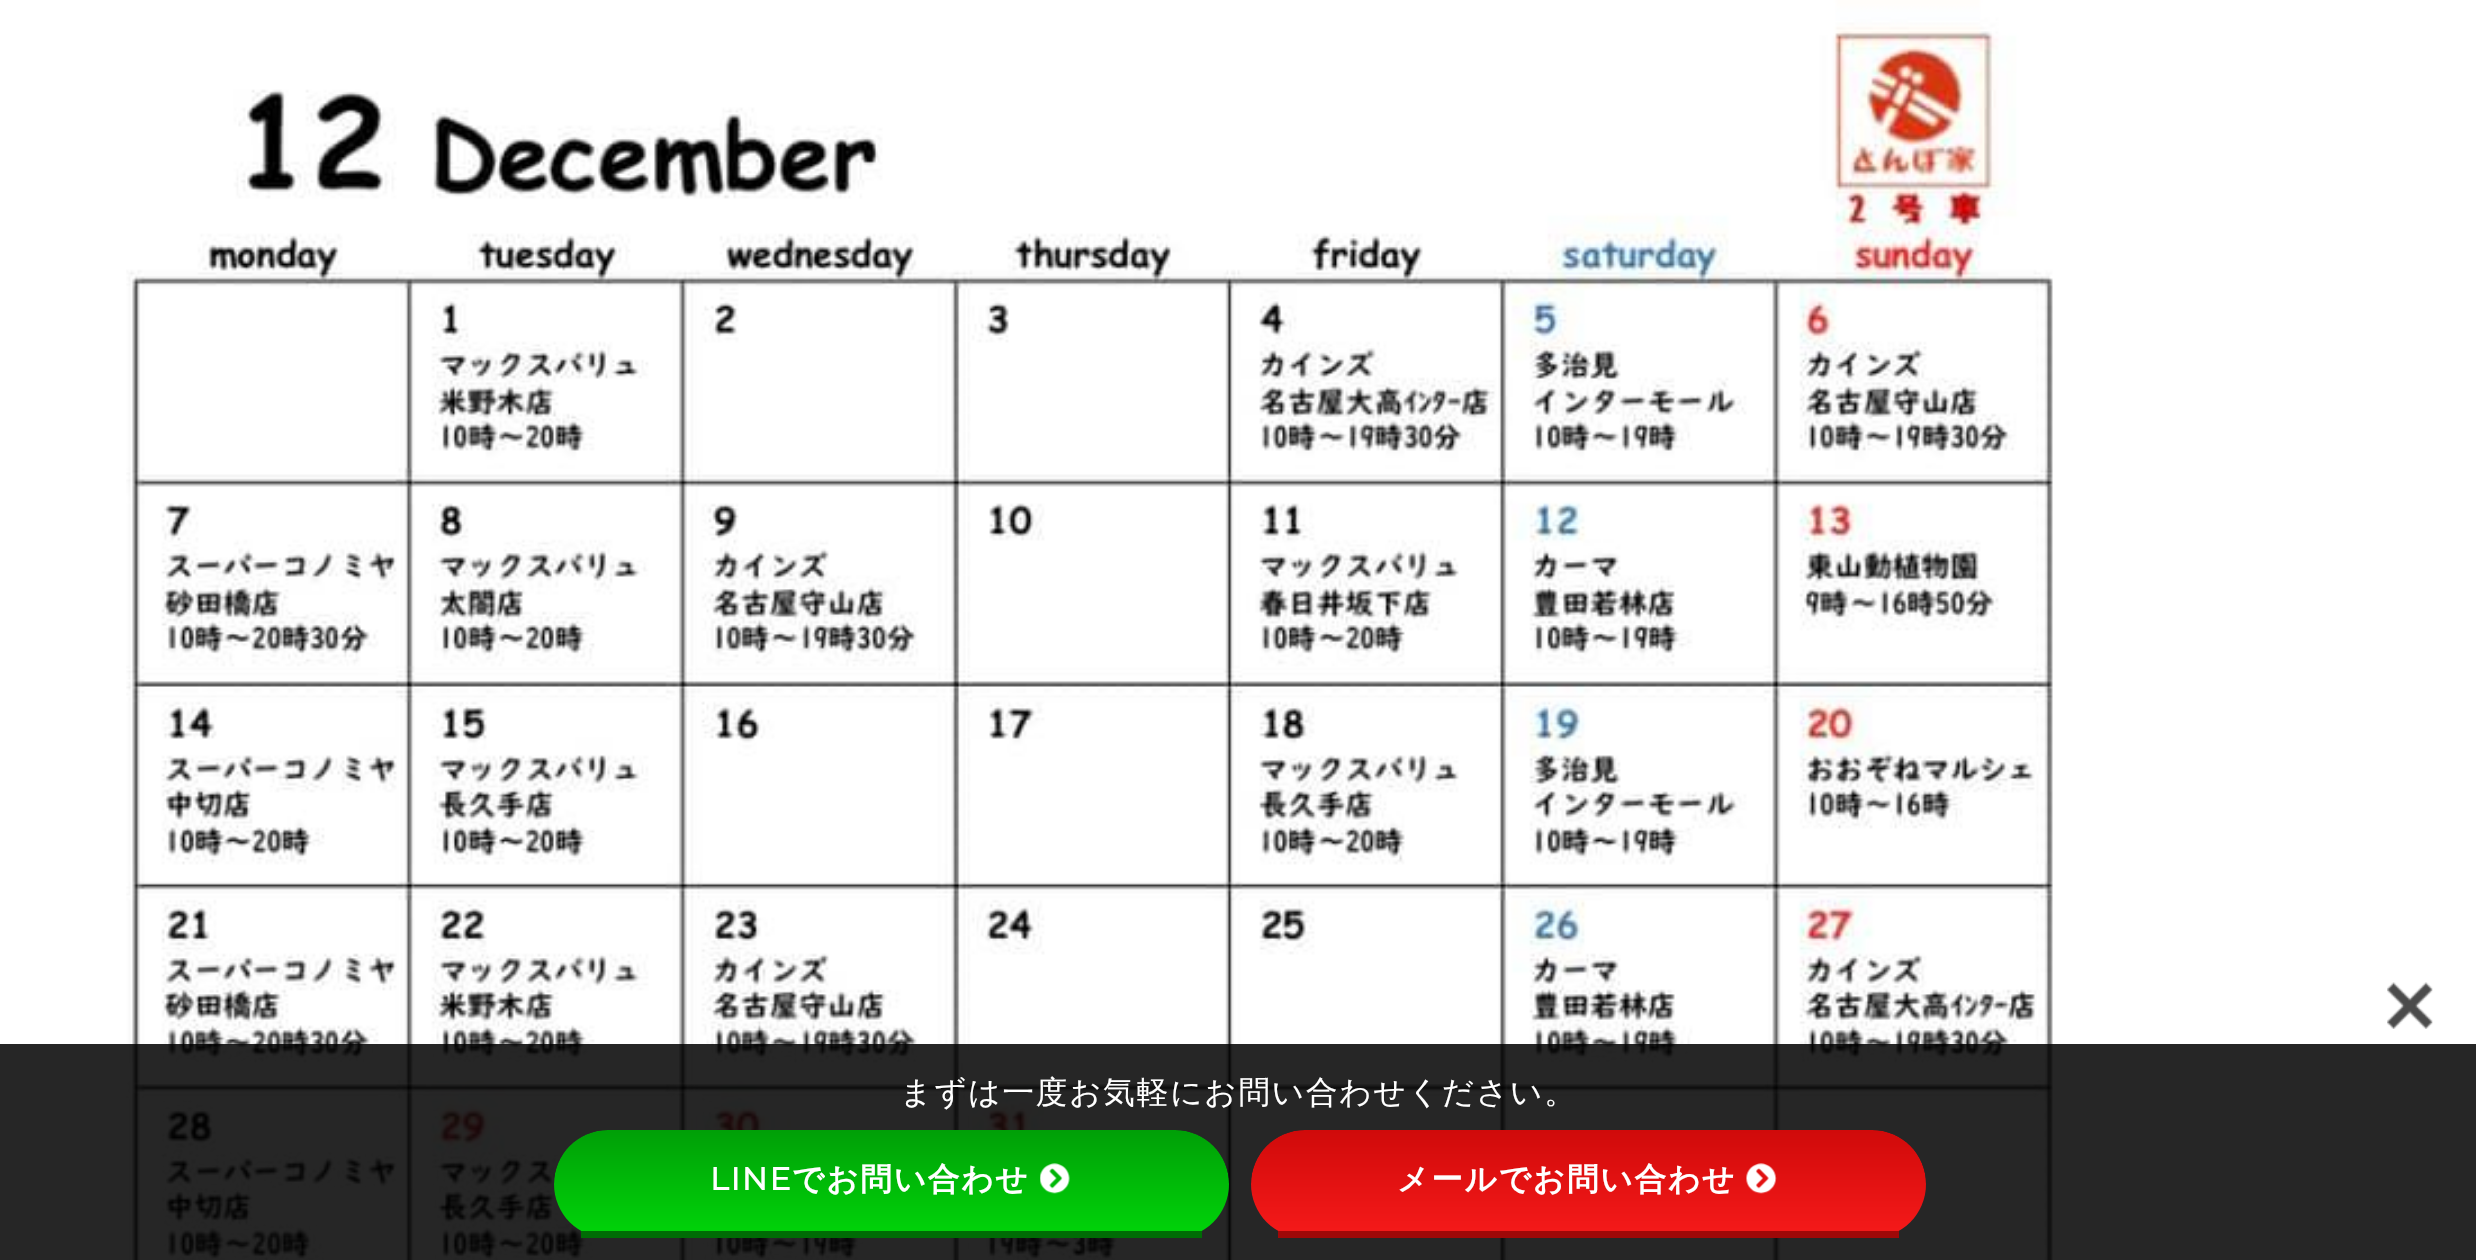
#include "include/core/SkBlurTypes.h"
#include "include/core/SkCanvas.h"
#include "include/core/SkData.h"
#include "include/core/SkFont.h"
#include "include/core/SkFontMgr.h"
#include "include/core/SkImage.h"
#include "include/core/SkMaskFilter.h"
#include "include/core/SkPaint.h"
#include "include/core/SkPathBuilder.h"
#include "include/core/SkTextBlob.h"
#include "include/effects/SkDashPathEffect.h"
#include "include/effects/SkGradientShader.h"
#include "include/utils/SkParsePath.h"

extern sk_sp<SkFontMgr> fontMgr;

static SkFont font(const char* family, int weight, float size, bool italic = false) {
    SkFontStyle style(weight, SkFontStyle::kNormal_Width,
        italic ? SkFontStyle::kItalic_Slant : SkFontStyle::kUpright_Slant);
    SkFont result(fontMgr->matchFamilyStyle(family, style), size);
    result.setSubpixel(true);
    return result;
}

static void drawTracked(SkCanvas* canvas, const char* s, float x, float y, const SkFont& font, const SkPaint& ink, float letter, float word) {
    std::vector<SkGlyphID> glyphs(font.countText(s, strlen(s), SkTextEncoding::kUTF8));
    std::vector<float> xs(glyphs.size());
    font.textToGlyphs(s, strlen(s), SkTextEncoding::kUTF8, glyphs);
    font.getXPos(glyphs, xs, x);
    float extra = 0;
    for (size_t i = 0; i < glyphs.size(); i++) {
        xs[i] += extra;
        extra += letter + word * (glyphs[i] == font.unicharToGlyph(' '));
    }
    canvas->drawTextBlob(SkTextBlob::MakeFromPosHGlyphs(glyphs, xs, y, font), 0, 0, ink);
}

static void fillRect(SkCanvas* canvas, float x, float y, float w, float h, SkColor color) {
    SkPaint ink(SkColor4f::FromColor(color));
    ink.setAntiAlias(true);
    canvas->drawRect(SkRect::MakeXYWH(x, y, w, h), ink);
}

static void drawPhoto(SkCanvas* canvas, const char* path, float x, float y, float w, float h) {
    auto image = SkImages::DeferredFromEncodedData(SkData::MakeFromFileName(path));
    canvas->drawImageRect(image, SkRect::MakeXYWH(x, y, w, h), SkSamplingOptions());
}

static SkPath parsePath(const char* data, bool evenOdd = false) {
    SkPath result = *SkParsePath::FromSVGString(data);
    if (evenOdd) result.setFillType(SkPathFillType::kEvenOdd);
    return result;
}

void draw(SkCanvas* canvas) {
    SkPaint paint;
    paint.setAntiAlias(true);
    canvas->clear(0xFFFFFFFF);
    drawPhoto(canvas, "assets/img1.png", 126, 0, 1927, 1260);
    fillRect(canvas, 0, 1044, 2476, 216, 0xD9000000);
    drawPhoto(canvas, "assets/img2.png", 2387, 982, 46, 47);
    SkFont font1 = font("WenQuanYi Zen Hei", 500, 31.5f);
    paint.setColor(0xFFFFFFFF);
    drawTracked(canvas, "まずは一度お気軽にお問い合わせください。", 900, 1103, font1, paint, 1.9f, 0);
    canvas->save();
    canvas->clipPath(parsePath("M608 1130H1175C1205 1130 1229 1154 1229 1184C1229 1214 1205 1238 1175 1238H608C578 1238 554 1214 554 1184C554 1154 578 1130 608 1130Z"), true);
    {
        const SkColor colors[] = {0xFF009F07, 0xFF00D209};
        const float stops[] = {0, 1};
        const SkPoint ends[] = {{891, 1130}, {891, 1231}};
        paint.setShader(SkGradientShader::MakeLinear(ends, colors, stops, 2, SkTileMode::kClamp));
        paint.setAlpha(255);
    }
    canvas->drawPath(parsePath("M608 1130H1175C1205 1130 1229 1154 1229 1184V1231H554V1184C554 1154 578 1130 608 1130Z"), paint);
    canvas->restore();
    fillRect(canvas, 581, 1231, 621, 7, 0xFF006C05);
    SkFont font2 = font("Montserrat", 700, 31.5f);
    paint.setShader(nullptr);
    paint.setColor(0xFFFFFFFF);
    drawTracked(canvas, "LINE", 710, 1190, font2, paint, 1.9f, 0);
    SkFont font3 = font("WenQuanYi Zen Hei", 700, 31.5f);
    drawTracked(canvas, "でお問い合わせ", 792, 1190, font3, paint, 1.9f, 0);
    drawPhoto(canvas, "assets/img3.png", 1040, 1163, 30, 31);
    canvas->save();
    canvas->clipPath(parsePath("M1305 1130H1872C1902 1130 1926 1154 1926 1184C1926 1214 1902 1238 1872 1238H1305C1275 1238 1251 1214 1251 1184C1251 1154 1275 1130 1305 1130Z"), true);
    {
        const SkColor colors[] = {0xFFD00A0A, 0xFFF41919};
        const float stops[] = {0, 1};
        const SkPoint ends[] = {{1589, 1130}, {1589, 1231}};
        paint.setShader(SkGradientShader::MakeLinear(ends, colors, stops, 2, SkTileMode::kClamp));
        paint.setAlpha(255);
    }
    canvas->drawPath(parsePath("M1305 1130H1872C1902 1130 1926 1154 1926 1184V1231H1251V1184C1251 1154 1275 1130 1305 1130Z"), paint);
    canvas->restore();
    fillRect(canvas, 1278, 1231, 621, 7, 0xFF9F0808);
    paint.setShader(nullptr);
    paint.setColor(0xFFFFFFFF);
    drawTracked(canvas, "メールでお問い合わせ", 1397, 1190, font3, paint, 1.9f, 0);
    drawPhoto(canvas, "assets/img4.png", 1746, 1163, 31, 31);
}
